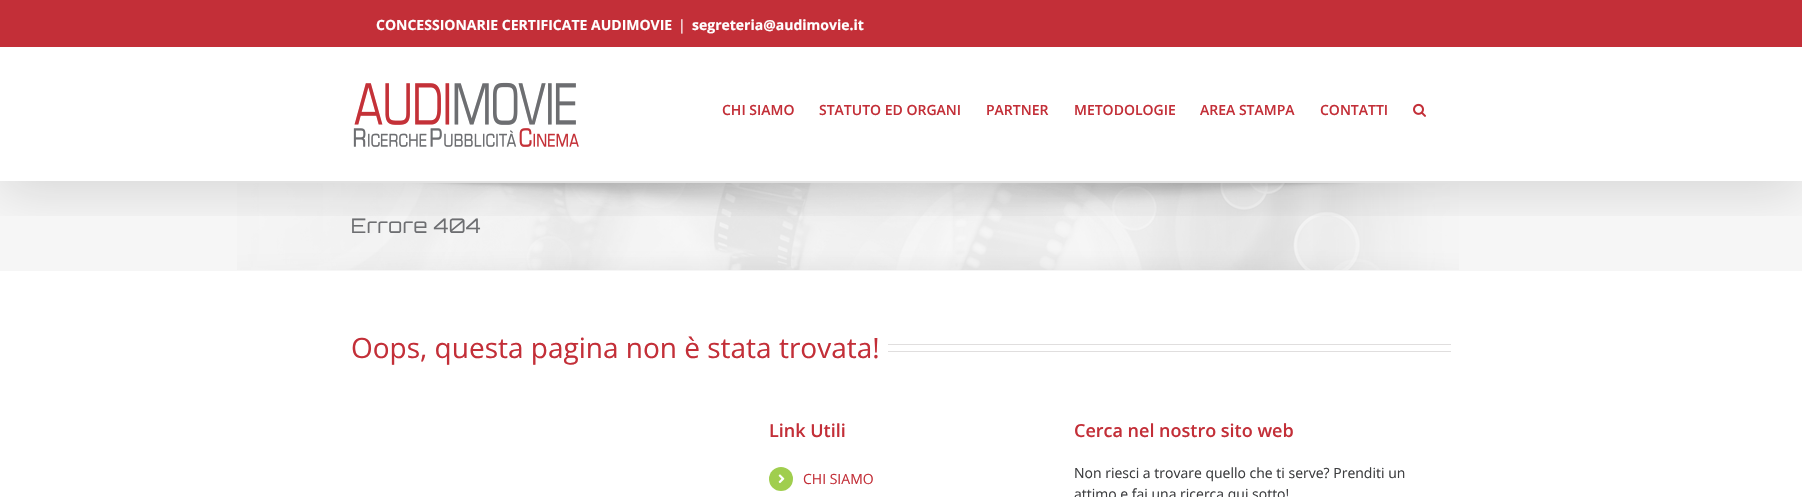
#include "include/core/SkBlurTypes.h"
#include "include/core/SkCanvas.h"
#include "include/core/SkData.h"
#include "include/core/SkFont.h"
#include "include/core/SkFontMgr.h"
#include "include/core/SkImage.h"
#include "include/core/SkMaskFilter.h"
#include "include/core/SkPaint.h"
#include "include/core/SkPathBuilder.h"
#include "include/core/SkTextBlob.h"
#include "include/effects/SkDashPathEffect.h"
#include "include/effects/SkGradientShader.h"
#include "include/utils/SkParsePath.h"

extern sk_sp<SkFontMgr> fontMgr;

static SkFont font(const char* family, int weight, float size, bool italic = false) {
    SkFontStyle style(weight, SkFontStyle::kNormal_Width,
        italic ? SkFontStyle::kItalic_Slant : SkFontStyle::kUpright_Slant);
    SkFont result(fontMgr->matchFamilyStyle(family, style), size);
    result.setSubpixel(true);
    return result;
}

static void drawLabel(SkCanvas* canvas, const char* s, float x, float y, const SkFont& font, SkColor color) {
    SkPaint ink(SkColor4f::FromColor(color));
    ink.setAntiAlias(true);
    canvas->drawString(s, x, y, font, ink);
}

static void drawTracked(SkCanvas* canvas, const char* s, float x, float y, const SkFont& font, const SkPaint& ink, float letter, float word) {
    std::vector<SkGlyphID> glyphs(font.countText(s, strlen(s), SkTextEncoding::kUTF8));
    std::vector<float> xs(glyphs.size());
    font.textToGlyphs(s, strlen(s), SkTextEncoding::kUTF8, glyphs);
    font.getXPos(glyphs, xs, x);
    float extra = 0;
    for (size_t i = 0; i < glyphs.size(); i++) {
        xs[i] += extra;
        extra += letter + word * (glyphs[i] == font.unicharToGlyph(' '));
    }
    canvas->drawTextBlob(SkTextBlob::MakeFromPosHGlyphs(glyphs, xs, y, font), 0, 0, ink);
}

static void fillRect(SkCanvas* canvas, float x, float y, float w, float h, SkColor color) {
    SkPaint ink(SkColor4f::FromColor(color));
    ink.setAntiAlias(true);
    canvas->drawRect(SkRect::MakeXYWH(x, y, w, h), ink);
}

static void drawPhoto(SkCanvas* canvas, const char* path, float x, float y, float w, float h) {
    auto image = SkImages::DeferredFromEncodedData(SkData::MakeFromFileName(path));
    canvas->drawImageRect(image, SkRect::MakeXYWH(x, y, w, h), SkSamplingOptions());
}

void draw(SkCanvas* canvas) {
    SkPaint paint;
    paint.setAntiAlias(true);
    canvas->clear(0xFFFFFFFF);
    fillRect(canvas, 0, 181, 1802, 90, 0xFFF6F6F6);
    drawPhoto(canvas, "assets/img3.png", 237, 183, 1222, 87);
    canvas->save();
    canvas->clipRect(SkRect::MakeXYWH(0, 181, 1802, 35));
    paint.setColor(0x24000000);
    paint.setMaskFilter(SkMaskFilter::MakeBlur(kNormal_SkBlurStyle, 25));
    canvas->drawRect(SkRect::MakeXYWH(2, 12, 1798, 177), paint);
    paint.setMaskFilter(nullptr);
    canvas->restore();
    fillRect(canvas, 0, 0, 1802, 47, 0xFFC32F38);
    SkFont font1 = font("Open Sans", 700, 14);
    drawLabel(canvas, "CONCESSIONARIE CERTIFICATE AUDIMOVIE", 376, 30, font1, 0xFFFFFFFF);
    SkFont font2 = font("Open Sans", 400, 14);
    drawLabel(canvas, "|", 678, 30, font2, 0xFFFFFFFF);
    drawLabel(canvas, "segreteria@audimovie.it", 692, 30, font1, 0xFFFFFFFF);
    drawPhoto(canvas, "assets/img1.png", 353, 82, 226, 65);
    SkFont font3 = font("Open Sans", 600, 14);
    drawLabel(canvas, "CHI SIAMO", 722, 115, font3, 0xFFC32F38);
    drawLabel(canvas, "STATUTO ED ORGANI", 819, 115, font3, 0xFFC32F38);
    drawLabel(canvas, "PARTNER", 986, 115, font3, 0xFFC32F38);
    drawLabel(canvas, "METODOLOGIE", 1074, 115, font3, 0xFFC32F38);
    drawLabel(canvas, "AREA STAMPA", 1200, 115, font3, 0xFFC32F38);
    drawLabel(canvas, "CONTATTI", 1320, 115, font3, 0xFFC32F38);
    drawPhoto(canvas, "assets/img2.png", 1413, 103, 13, 14);
    SkFont font4 = font("Orbitron", 400, 20);
    paint.setColor(0xFF6D6E71);
    drawTracked(canvas, "Errore 404", 351, 233, font4, paint, 0.5f, 0);
    SkFont font5 = font("Open Sans", 400, 28);
    drawLabel(canvas, "Oops, questa pagina non è stata trovata!", 351, 358, font5, 0xFFC32F38);
    fillRect(canvas, 888, 344, 563, 1, 0xFFE0DEDE);
    fillRect(canvas, 888, 351, 563, 1, 0xFFE0DEDE);
    SkFont font6 = font("Open Sans", 600, 18);
    drawLabel(canvas, "Link Utili", 769, 437, font6, 0xFFC32F38);
    paint.setColor(0xFFA0CE4E);
    canvas->drawCircle(781, 479, 12, paint);
    drawPhoto(canvas, "assets/img4.png", 778, 474, 7, 10);
    drawLabel(canvas, "CHI SIAMO", 803, 484, font2, 0xFFC32F38);
    drawLabel(canvas, "Cerca nel nostro sito web", 1074, 437, font6, 0xFFC32F38);
    drawLabel(canvas, "Non riesci a trovare quello che ti serve? Prenditi un", 1074, 478, font2, 0xFF3D3E40);
    drawLabel(canvas, "attimo e fai una ricerca qui sotto!", 1074, 499, font2, 0xFF3D3E40);
}
